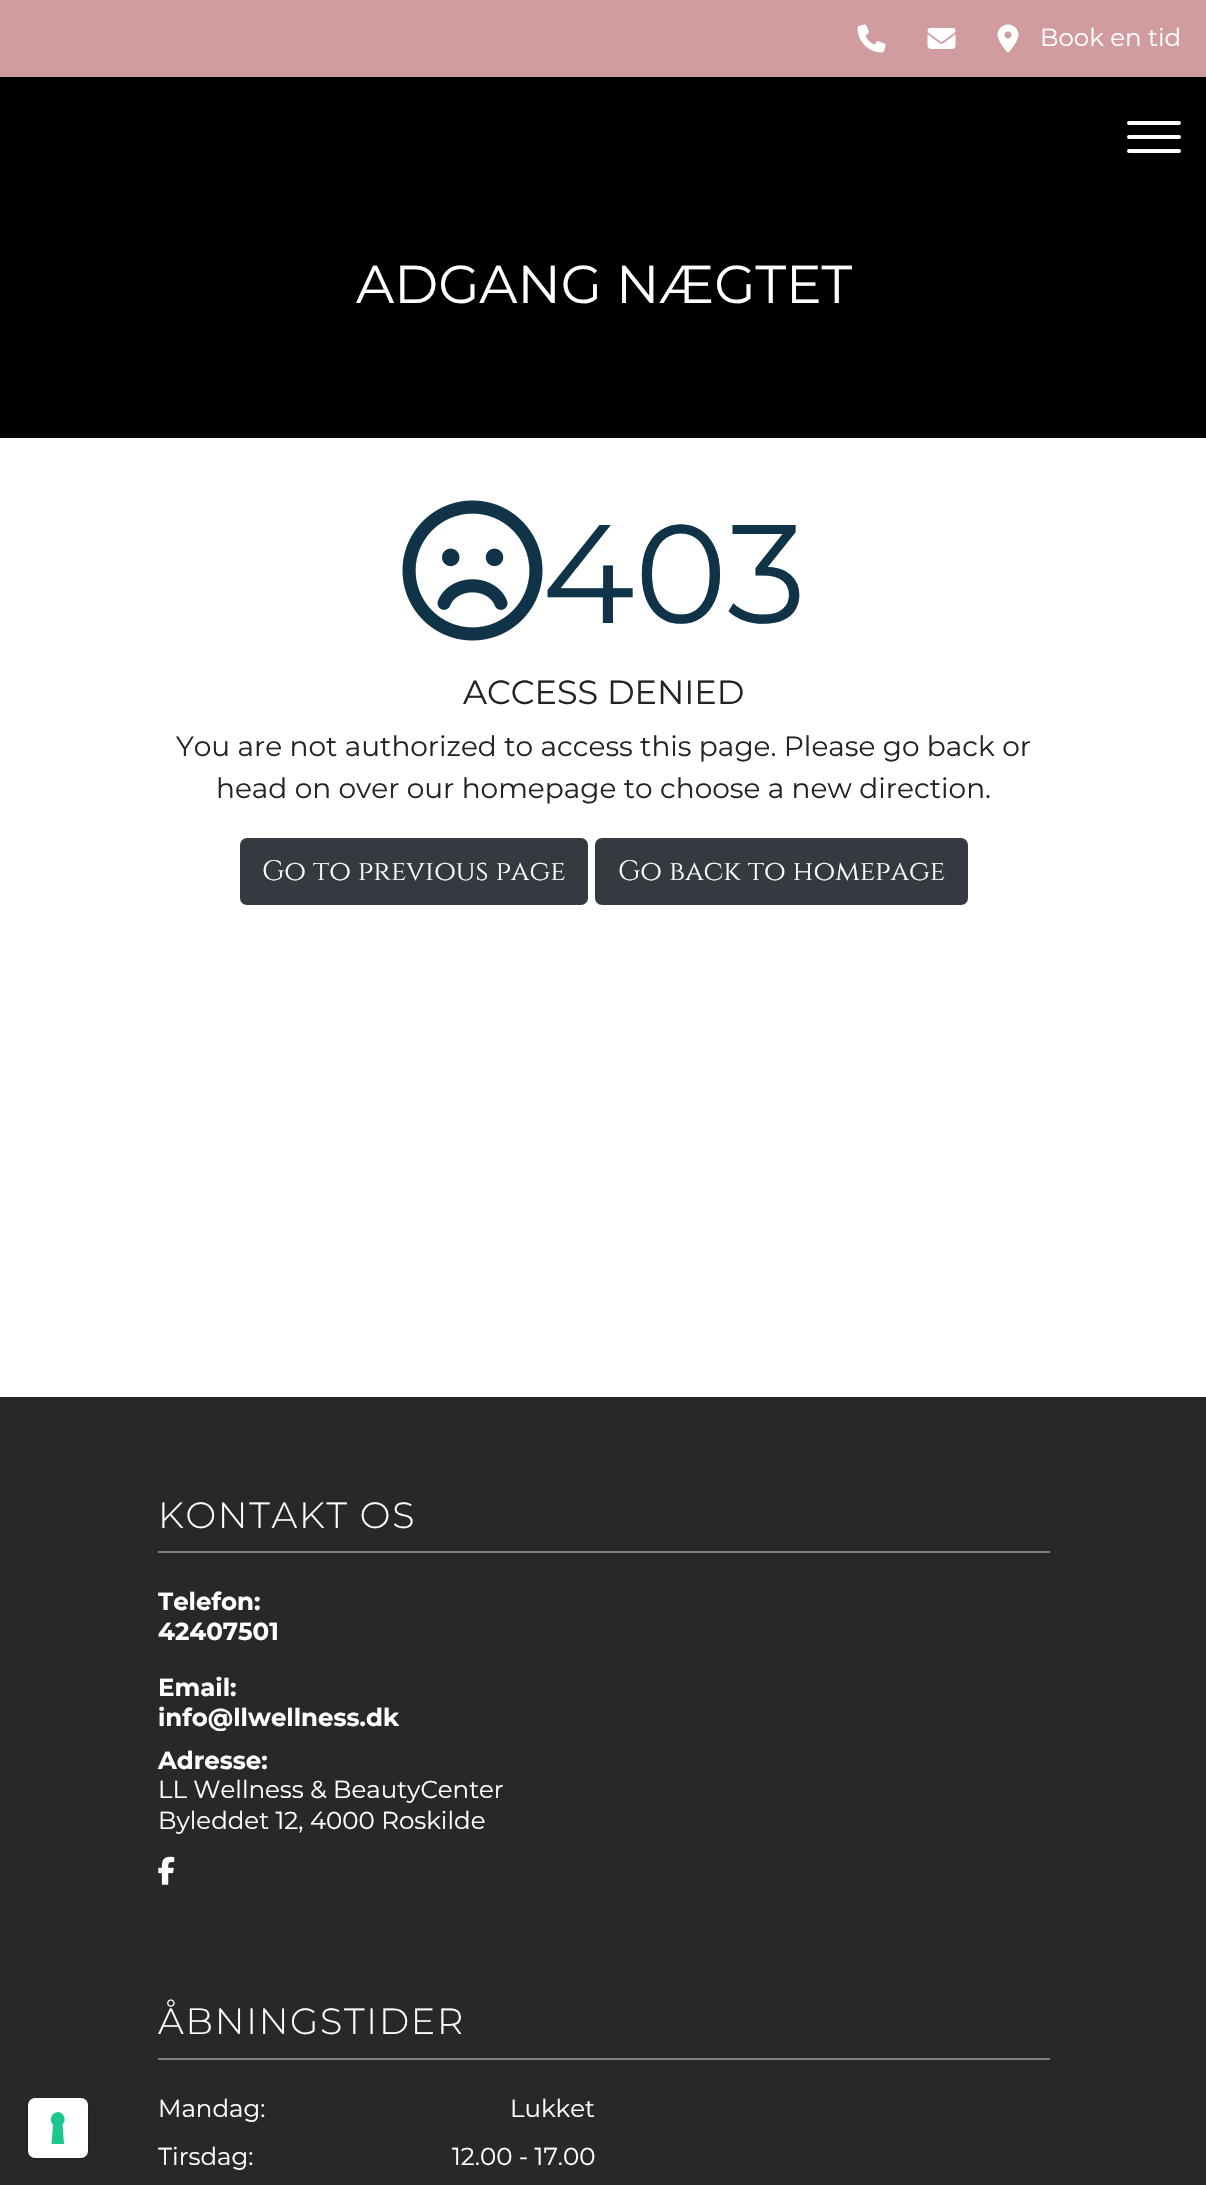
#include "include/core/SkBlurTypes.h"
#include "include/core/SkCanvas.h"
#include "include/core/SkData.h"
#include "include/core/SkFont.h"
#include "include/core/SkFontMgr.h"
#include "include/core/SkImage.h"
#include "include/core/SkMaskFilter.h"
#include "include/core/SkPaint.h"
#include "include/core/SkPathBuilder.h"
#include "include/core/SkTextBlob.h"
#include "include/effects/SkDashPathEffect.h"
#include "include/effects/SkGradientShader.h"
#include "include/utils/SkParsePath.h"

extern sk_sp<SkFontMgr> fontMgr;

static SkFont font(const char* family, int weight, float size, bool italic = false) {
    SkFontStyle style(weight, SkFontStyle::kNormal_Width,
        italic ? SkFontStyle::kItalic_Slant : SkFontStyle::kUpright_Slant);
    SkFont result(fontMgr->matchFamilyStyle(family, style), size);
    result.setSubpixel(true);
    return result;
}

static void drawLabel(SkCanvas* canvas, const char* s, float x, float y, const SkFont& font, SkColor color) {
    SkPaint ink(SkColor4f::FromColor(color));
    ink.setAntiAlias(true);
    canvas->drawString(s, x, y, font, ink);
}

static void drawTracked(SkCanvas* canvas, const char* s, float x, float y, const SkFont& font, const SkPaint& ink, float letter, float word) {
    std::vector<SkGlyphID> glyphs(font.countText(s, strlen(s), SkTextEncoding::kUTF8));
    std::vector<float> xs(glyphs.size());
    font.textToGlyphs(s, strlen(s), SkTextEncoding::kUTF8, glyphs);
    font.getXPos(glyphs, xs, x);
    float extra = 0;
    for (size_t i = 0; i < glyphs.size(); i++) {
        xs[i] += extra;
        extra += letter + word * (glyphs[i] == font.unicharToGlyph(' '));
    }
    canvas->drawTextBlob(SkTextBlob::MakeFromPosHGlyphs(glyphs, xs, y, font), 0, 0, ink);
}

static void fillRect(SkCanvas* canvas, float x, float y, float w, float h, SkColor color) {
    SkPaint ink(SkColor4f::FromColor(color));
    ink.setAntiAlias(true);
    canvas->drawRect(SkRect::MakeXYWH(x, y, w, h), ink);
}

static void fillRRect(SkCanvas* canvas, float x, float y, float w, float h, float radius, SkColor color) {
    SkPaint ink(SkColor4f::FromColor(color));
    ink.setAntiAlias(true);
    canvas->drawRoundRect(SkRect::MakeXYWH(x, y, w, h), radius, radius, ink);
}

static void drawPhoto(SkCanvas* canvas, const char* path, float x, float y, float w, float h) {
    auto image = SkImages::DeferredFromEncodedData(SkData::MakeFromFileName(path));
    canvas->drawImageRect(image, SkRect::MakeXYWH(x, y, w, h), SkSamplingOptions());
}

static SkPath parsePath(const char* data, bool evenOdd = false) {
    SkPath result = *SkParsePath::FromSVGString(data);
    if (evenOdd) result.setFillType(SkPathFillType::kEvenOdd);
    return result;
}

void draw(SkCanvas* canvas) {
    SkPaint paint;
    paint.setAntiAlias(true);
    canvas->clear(0xFFFFFFFF);
    fillRect(canvas, 0, 1397, 1206, 788, 0xFF282828);
    paint.setStroke(true);
    paint.setStrokeWidth(2);
    paint.setColor(0xFF222222);
    canvas->drawRoundRect(SkRect::MakeXYWH(27, 2098, 61, 61), 8, 8, paint);
    fillRRect(canvas, 28, 2098, 60, 60, 7, 0xFFFFFFFF);
    paint.setStroke(false);
    paint.setColor(0xFF1CC691);
    canvas->drawPath(parsePath("M58 2112C64 2112.5 67 2120.5 62.5 2124.5L64 2144H51.5L53 2124.5C48.5 2120.5 51.5 2112.5 58 2112Z", true), paint);
    fillRect(canvas, 0, 0, 1206, 77, 0xFFD19C9F);
    drawPhoto(canvas, "assets/img1.png", 857, 24, 29, 29);
    drawPhoto(canvas, "assets/img2.png", 927, 28, 29, 21);
    drawPhoto(canvas, "assets/img3.png", 997, 24, 22, 29);
    SkFont font1 = font("Montserrat", 400, 24.5f);
    drawLabel(canvas, "Book en tid", 1040, 46, font1, 0xFFFFFFFF);
    fillRect(canvas, 0, 77, 1206, 361, 0xFF000000);
    fillRRect(canvas, 1127, 149, 54, 4, 2, 0xFFFFFFFF);
    fillRRect(canvas, 1127, 121, 54, 4, 2, 0xFFFFFFFF);
    fillRRect(canvas, 1127, 135, 54, 4, 2, 0xFFFFFFFF);
    SkFont font2 = font("Montserrat", 400, 53.25f);
    drawLabel(canvas, "ADGANG NÆGTET", 356, 303, font2, 0xFFFFFFFF);
    drawPhoto(canvas, "assets/img4.png", 402, 500, 141, 141);
    SkFont font3 = font("Montserrat", 400, 140);
    drawLabel(canvas, "403", 542, 623, font3, 0xFF103347);
    SkFont font4 = font("Montserrat", 400, 33.5f);
    drawLabel(canvas, "ACCESS DENIED", 463, 704, font4, 0xFF212429);
    SkFont font5 = font("Montserrat", 400, 28);
    drawLabel(canvas, "You are not authorized to access this page. Please go back or", 176, 756, font5, 0xFF212429);
    drawLabel(canvas, "head on over our homepage to choose a new direction.", 216, 798, font5, 0xFF212429);
    paint.setColor(0xFF343A40);
    canvas->drawRoundRect(SkRect::MakeXYWH(241, 839, 346, 65), 6, 6, paint);
    paint.setStroke(true);
    canvas->drawRoundRect(SkRect::MakeXYWH(241, 839, 346, 65), 6, 6, paint);
    SkFont font6 = font("Cinzel", 400, 28);
    drawLabel(canvas, "Go to previous page", 262, 880, font6, 0xFFFFFFFF);
    paint.setStroke(false);
    canvas->drawRoundRect(SkRect::MakeXYWH(596, 839, 371, 65), 6, 6, paint);
    paint.setStroke(true);
    canvas->drawRoundRect(SkRect::MakeXYWH(596, 839, 371, 65), 6, 6, paint);
    drawLabel(canvas, "Go back to homepage", 618, 880, font6, 0xFFFFFFFF);
    fillRect(canvas, 158, 1551, 892, 2, 0xFF7E7E7E);
    SkFont font7 = font("Montserrat", 300, 36.5f);
    paint.setStroke(false);
    paint.setColor(0xFFFFFFFF);
    drawTracked(canvas, "KONTAKT OS", 158, 1528, font7, paint, 1.75f, 0);
    SkFont font8 = font("Montserrat", 700, 24.5f);
    drawLabel(canvas, "Telefon:", 158, 1610, font8, 0xFFFFFFFF);
    drawLabel(canvas, "42407501", 158, 1640, font8, 0xFFFFFFFF);
    drawLabel(canvas, "Email:", 158, 1696, font8, 0xFFFFFFFF);
    drawLabel(canvas, "info@llwellness.dk", 158, 1726, font8, 0xFFFFFFFF);
    drawLabel(canvas, "Adresse:", 158, 1769, font8, 0xFFFFFFFF);
    drawLabel(canvas, "LL Wellness & BeautyCenter", 158, 1798, font1, 0xFFFFFFFF);
    drawLabel(canvas, "Byleddet 12, 4000 Roskilde", 158, 1829, font1, 0xFFFFFFFF);
    drawPhoto(canvas, "assets/img5.png", 158, 1856, 17, 29);
    fillRect(canvas, 158, 2058, 892, 2, 0xFF7E7E7E);
    drawTracked(canvas, "ÅBNINGSTIDER", 158, 2034, font7, paint, 1.75f, 0);
    drawLabel(canvas, "Mandag:", 158, 2117, font1, 0xFFFFFFFF);
    drawLabel(canvas, "Lukket", 510, 2117, font1, 0xFFFFFFFF);
    drawLabel(canvas, "Tirsdag:", 158, 2165, font1, 0xFFFFFFFF);
    drawLabel(canvas, "12.00 - 17.00", 452, 2165, font1, 0xFFFFFFFF);
}
